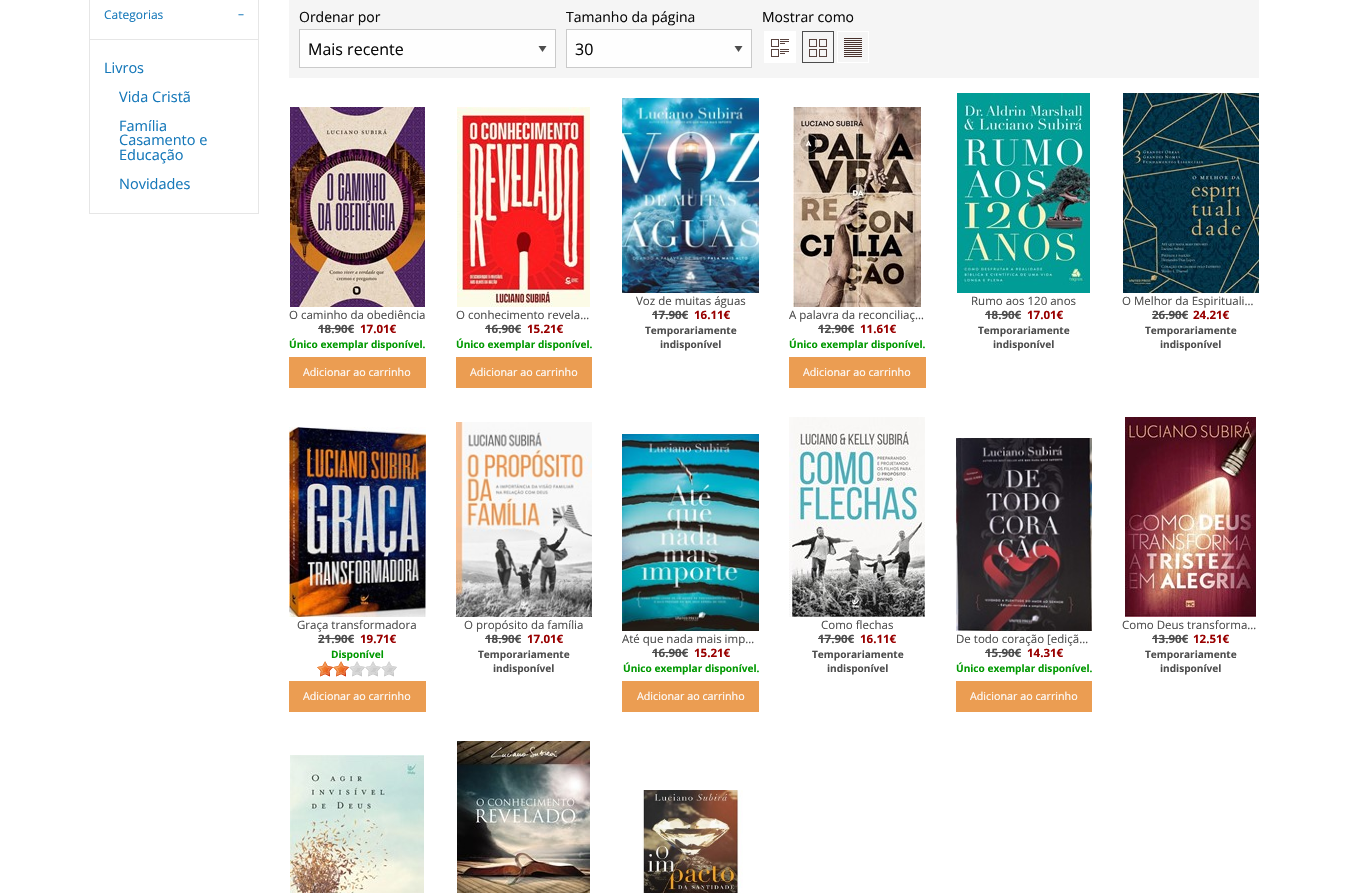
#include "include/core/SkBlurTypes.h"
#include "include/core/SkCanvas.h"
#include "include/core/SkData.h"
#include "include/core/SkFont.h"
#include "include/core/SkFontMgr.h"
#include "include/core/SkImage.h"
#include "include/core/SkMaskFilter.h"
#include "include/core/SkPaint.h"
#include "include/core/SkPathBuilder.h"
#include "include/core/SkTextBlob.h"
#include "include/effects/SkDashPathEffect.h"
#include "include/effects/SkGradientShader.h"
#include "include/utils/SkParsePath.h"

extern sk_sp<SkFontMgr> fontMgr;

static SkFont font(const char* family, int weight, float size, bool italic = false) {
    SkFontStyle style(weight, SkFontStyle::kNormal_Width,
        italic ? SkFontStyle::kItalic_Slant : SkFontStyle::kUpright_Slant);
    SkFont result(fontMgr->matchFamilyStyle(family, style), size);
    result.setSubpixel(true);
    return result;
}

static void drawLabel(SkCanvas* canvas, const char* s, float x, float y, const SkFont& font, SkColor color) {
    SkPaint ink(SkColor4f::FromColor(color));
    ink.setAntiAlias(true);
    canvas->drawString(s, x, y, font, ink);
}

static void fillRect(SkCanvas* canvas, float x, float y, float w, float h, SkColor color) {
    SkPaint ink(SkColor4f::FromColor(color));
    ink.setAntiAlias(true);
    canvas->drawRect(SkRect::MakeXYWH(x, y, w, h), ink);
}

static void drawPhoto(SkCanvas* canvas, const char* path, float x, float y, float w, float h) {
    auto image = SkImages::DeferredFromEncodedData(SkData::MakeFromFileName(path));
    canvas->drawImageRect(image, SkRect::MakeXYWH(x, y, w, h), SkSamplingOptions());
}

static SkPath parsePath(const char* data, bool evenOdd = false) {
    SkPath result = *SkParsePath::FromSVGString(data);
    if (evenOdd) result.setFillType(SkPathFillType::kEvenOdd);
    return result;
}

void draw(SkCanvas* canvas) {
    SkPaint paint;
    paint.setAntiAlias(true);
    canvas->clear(0xFFFFFFFF);
    fillRect(canvas, 258, 0, 1, 39, 0xFFE6E6E6);
    fillRect(canvas, 89, 0, 1, 39, 0xFFE6E6E6);
    SkFont font1 = font("Open Sans", 400, 12);
    drawLabel(canvas, "Categorias", 104, 19, font1, 0xFF1779BA);
    drawLabel(canvas, "–", 238, 18, font1, 0xFF1779BA);
    paint.setStroke(true);
    paint.setStrokeWidth(1);
    paint.setColor(0xFFE6E6E6);
    canvas->drawRect(SkRect::MakeXYWH(89.5f, 39.5f, 169, 174), paint);
    SkFont font2 = font("Open Sans", 400, 14.5f);
    drawLabel(canvas, "Livros", 104, 73, font2, 0xFF1779BA);
    drawLabel(canvas, "Vida Cristã", 119, 102, font2, 0xFF1779BA);
    drawLabel(canvas, "Família", 119, 131, font2, 0xFF1779BA);
    drawLabel(canvas, "Casamento e", 119, 145, font2, 0xFF1779BA);
    drawLabel(canvas, "Educação", 119, 160, font2, 0xFF1779BA);
    drawLabel(canvas, "Novidades", 119, 189, font2, 0xFF1779BA);
    fillRect(canvas, 289, 0, 970, 78, 0xFFF5F5F5);
    SkFont font3 = font("Open Sans", 400, 14);
    drawLabel(canvas, "Ordenar por", 299, 22, font3, 0xFF0A0A0A);
    fillRect(canvas, 300, 30, 255, 37, 0xFFFEFEFE);
    paint.setStroke(false);
    paint.setColor(0xFF4D4D4D);
    canvas->drawPath(parsePath("M538.5 46H546.5L542.5 52Z"), paint);
    paint.setStroke(true);
    paint.setColor(0xFFCACACA);
    canvas->drawRect(SkRect::MakeXYWH(299.5f, 29.5f, 256, 38), paint);
    SkFont font4 = font("Open Sans", 400, 16);
    drawLabel(canvas, "Mais recente", 308, 55, font4, 0xFF0A0A0A);
    drawLabel(canvas, "Tamanho da página", 566, 22, font3, 0xFF0A0A0A);
    fillRect(canvas, 567, 30, 184, 37, 0xFFFEFEFE);
    paint.setStroke(false);
    paint.setColor(0xFF4D4D4D);
    canvas->drawPath(parsePath("M734.5 46H742.5L738.5 52Z"), paint);
    paint.setStroke(true);
    paint.setColor(0xFFCACACA);
    canvas->drawRect(SkRect::MakeXYWH(566.5f, 29.5f, 185, 38), paint);
    drawLabel(canvas, "30", 575, 55, font4, 0xFF0A0A0A);
    drawLabel(canvas, "Mostrar como", 762, 22, font3, 0xFF0A0A0A);
    fillRect(canvas, 764, 31, 32, 32, 0xFFFFFFFF);
    drawPhoto(canvas, "assets/img1.png", 771, 39, 18, 18);
    drawPhoto(canvas, "assets/img2.png", 809, 39, 18, 18);
    paint.setColor(0xFF4D4D4D);
    canvas->drawRect(SkRect::MakeXYWH(802.5f, 31.5f, 31, 31), paint);
    drawPhoto(canvas, "assets/img3.png", 844, 38, 18, 19);
    paint.setColor(0xFFFFFFFF);
    canvas->drawRect(SkRect::MakeXYWH(837.5f, 31.5f, 31, 31), paint);
    drawPhoto(canvas, "assets/img4.png", 290, 107, 135, 200);
    SkFont font5 = font("Open Sans", 400, 11.5f);
    drawLabel(canvas, "O caminho da obediência", 289, 319, font5, 0xFF4D4D4D);
    SkFont font6 = font("Open Sans", 700, 11.5f);
    drawLabel(canvas, "18.90€", 318, 333, font6, 0xFF4D4D4D);
    fillRect(canvas, 318, 328, 36, 1, 0xFF4D4D4D);
    drawLabel(canvas, "17.01€", 360, 333, font6, 0xFF990000);
    SkFont font7 = font("Open Sans", 700, 10.1f);
    drawLabel(canvas, "Único exemplar disponível.", 289, 348, font7, 0xFF009900);
    fillRect(canvas, 289, 357, 137, 31, 0xFFEB9D52);
    SkFont font8 = font("Open Sans", 400, 10.75f);
    drawLabel(canvas, "Adicionar ao carrinho", 303, 376, font8, 0xFFFEFEFE);
    drawPhoto(canvas, "assets/img5.png", 457, 107, 133, 200);
    drawLabel(canvas, "O conhecimento revela…", 456, 319, font5, 0xFF4D4D4D);
    drawLabel(canvas, "16.90€", 485, 333, font6, 0xFF4D4D4D);
    fillRect(canvas, 485, 328, 36, 1, 0xFF4D4D4D);
    drawLabel(canvas, "15.21€", 527, 333, font6, 0xFF990000);
    drawLabel(canvas, "Único exemplar disponível.", 456, 348, font7, 0xFF009900);
    fillRect(canvas, 456, 357, 136, 31, 0xFFEB9D52);
    drawLabel(canvas, "Adicionar ao carrinho", 470, 376, font8, 0xFFFEFEFE);
    drawPhoto(canvas, "assets/img6.png", 622, 98, 137, 195);
    drawLabel(canvas, "Voz de muitas águas", 636, 305, font5, 0xFF4D4D4D);
    drawLabel(canvas, "17.90€", 652, 319, font6, 0xFF4D4D4D);
    fillRect(canvas, 652, 314, 36, 1, 0xFF4D4D4D);
    drawLabel(canvas, "16.11€", 694, 319, font6, 0xFF990000);
    drawLabel(canvas, "Temporariamente", 645, 334, font7, 0xFF4D4D4D);
    drawLabel(canvas, "indisponível", 660, 348, font7, 0xFF4D4D4D);
    drawPhoto(canvas, "assets/img7.png", 793, 107, 128, 200);
    drawLabel(canvas, "A palavra da reconciliaç…", 789, 319, font5, 0xFF4D4D4D);
    drawLabel(canvas, "12.90€", 818, 333, font6, 0xFF4D4D4D);
    fillRect(canvas, 818, 328, 36, 1, 0xFF4D4D4D);
    drawLabel(canvas, "11.61€", 860, 333, font6, 0xFF990000);
    drawLabel(canvas, "Único exemplar disponível.", 789, 348, font7, 0xFF009900);
    fillRect(canvas, 789, 357, 137, 31, 0xFFEB9D52);
    drawLabel(canvas, "Adicionar ao carrinho", 803, 376, font8, 0xFFFEFEFE);
    drawPhoto(canvas, "assets/img8.png", 957, 93, 133, 200);
    drawLabel(canvas, "Rumo aos 120 anos", 971, 305, font5, 0xFF4D4D4D);
    drawLabel(canvas, "18.90€", 985, 319, font6, 0xFF4D4D4D);
    fillRect(canvas, 985, 314, 36, 1, 0xFF4D4D4D);
    drawLabel(canvas, "17.01€", 1027, 319, font6, 0xFF990000);
    drawLabel(canvas, "Temporariamente", 978, 334, font7, 0xFF4D4D4D);
    drawLabel(canvas, "indisponível", 993, 348, font7, 0xFF4D4D4D);
    drawPhoto(canvas, "assets/img9.png", 1123, 93, 136, 200);
    drawLabel(canvas, "O Melhor da Espirituali…", 1122, 305, font5, 0xFF4D4D4D);
    drawLabel(canvas, "26.90€", 1152, 319, font6, 0xFF4D4D4D);
    fillRect(canvas, 1152, 314, 36, 1, 0xFF4D4D4D);
    drawLabel(canvas, "24.21€", 1193, 319, font6, 0xFF990000);
    drawLabel(canvas, "Temporariamente", 1145, 334, font7, 0xFF4D4D4D);
    drawLabel(canvas, "indisponível", 1160, 348, font7, 0xFF4D4D4D);
    drawPhoto(canvas, "assets/img10.png", 289, 427, 137, 190);
    drawLabel(canvas, "Graça transformadora", 297, 629, font5, 0xFF4D4D4D);
    drawLabel(canvas, "21.90€", 318, 643, font6, 0xFF4D4D4D);
    fillRect(canvas, 318, 638, 36, 1, 0xFF4D4D4D);
    drawLabel(canvas, "19.71€", 360, 643, font6, 0xFF990000);
    drawLabel(canvas, "Disponível", 331, 658, font7, 0xFF009900);
    drawPhoto(canvas, "assets/img11.png", 349, 661, 48, 16);
    drawPhoto(canvas, "assets/img12.png", 317, 661, 32, 16);
    fillRect(canvas, 289, 681, 137, 31, 0xFFEB9D52);
    drawLabel(canvas, "Adicionar ao carrinho", 303, 700, font8, 0xFFFEFEFE);
    drawPhoto(canvas, "assets/img13.png", 456, 422, 136, 195);
    drawLabel(canvas, "O propósito da família", 464, 629, font5, 0xFF4D4D4D);
    drawLabel(canvas, "18.90€", 485, 643, font6, 0xFF4D4D4D);
    fillRect(canvas, 485, 638, 36, 1, 0xFF4D4D4D);
    drawLabel(canvas, "17.01€", 527, 643, font6, 0xFF990000);
    drawLabel(canvas, "Temporariamente", 478, 658, font7, 0xFF4D4D4D);
    drawLabel(canvas, "indisponível", 493, 672, font7, 0xFF4D4D4D);
    drawPhoto(canvas, "assets/img14.png", 622, 434, 137, 197);
    drawLabel(canvas, "Até que nada mais imp…", 622, 643, font5, 0xFF4D4D4D);
    drawLabel(canvas, "16.90€", 652, 657, font6, 0xFF4D4D4D);
    fillRect(canvas, 652, 652, 36, 1, 0xFF4D4D4D);
    drawLabel(canvas, "15.21€", 694, 657, font6, 0xFF990000);
    drawLabel(canvas, "Único exemplar disponível.", 623, 672, font7, 0xFF009900);
    fillRect(canvas, 622, 681, 137, 31, 0xFFEB9D52);
    drawLabel(canvas, "Adicionar ao carrinho", 637, 700, font8, 0xFFFEFEFE);
    drawPhoto(canvas, "assets/img15.png", 789, 417, 136, 200);
    drawLabel(canvas, "Como flechas", 821, 629, font5, 0xFF4D4D4D);
    drawLabel(canvas, "17.90€", 818, 643, font6, 0xFF4D4D4D);
    fillRect(canvas, 818, 638, 36, 1, 0xFF4D4D4D);
    drawLabel(canvas, "16.11€", 860, 643, font6, 0xFF990000);
    drawLabel(canvas, "Temporariamente", 812, 658, font7, 0xFF4D4D4D);
    drawLabel(canvas, "indisponível", 827, 672, font7, 0xFF4D4D4D);
    drawPhoto(canvas, "assets/img16.png", 956, 438, 136, 193);
    drawLabel(canvas, "De todo coração [ediçã…", 956, 643, font5, 0xFF4D4D4D);
    drawLabel(canvas, "15.90€", 985, 657, font6, 0xFF4D4D4D);
    fillRect(canvas, 985, 652, 36, 1, 0xFF4D4D4D);
    drawLabel(canvas, "14.31€", 1027, 657, font6, 0xFF990000);
    drawLabel(canvas, "Único exemplar disponível.", 956, 672, font7, 0xFF009900);
    fillRect(canvas, 956, 681, 136, 31, 0xFFEB9D52);
    drawLabel(canvas, "Adicionar ao carrinho", 970, 700, font8, 0xFFFEFEFE);
    drawPhoto(canvas, "assets/img17.png", 1125, 417, 131, 200);
    drawLabel(canvas, "Como Deus transforma…", 1122, 629, font5, 0xFF4D4D4D);
    drawLabel(canvas, "13.90€", 1152, 643, font6, 0xFF4D4D4D);
    fillRect(canvas, 1152, 638, 36, 1, 0xFF4D4D4D);
    drawLabel(canvas, "12.51€", 1193, 643, font6, 0xFF990000);
    drawLabel(canvas, "Temporariamente", 1145, 658, font7, 0xFF4D4D4D);
    drawLabel(canvas, "indisponível", 1160, 672, font7, 0xFF4D4D4D);
    drawPhoto(canvas, "assets/img18.png", 290, 755, 134, 138);
    drawPhoto(canvas, "assets/img19.png", 457, 741, 133, 152);
    drawPhoto(canvas, "assets/img20.png", 642, 790, 101, 103);
}
